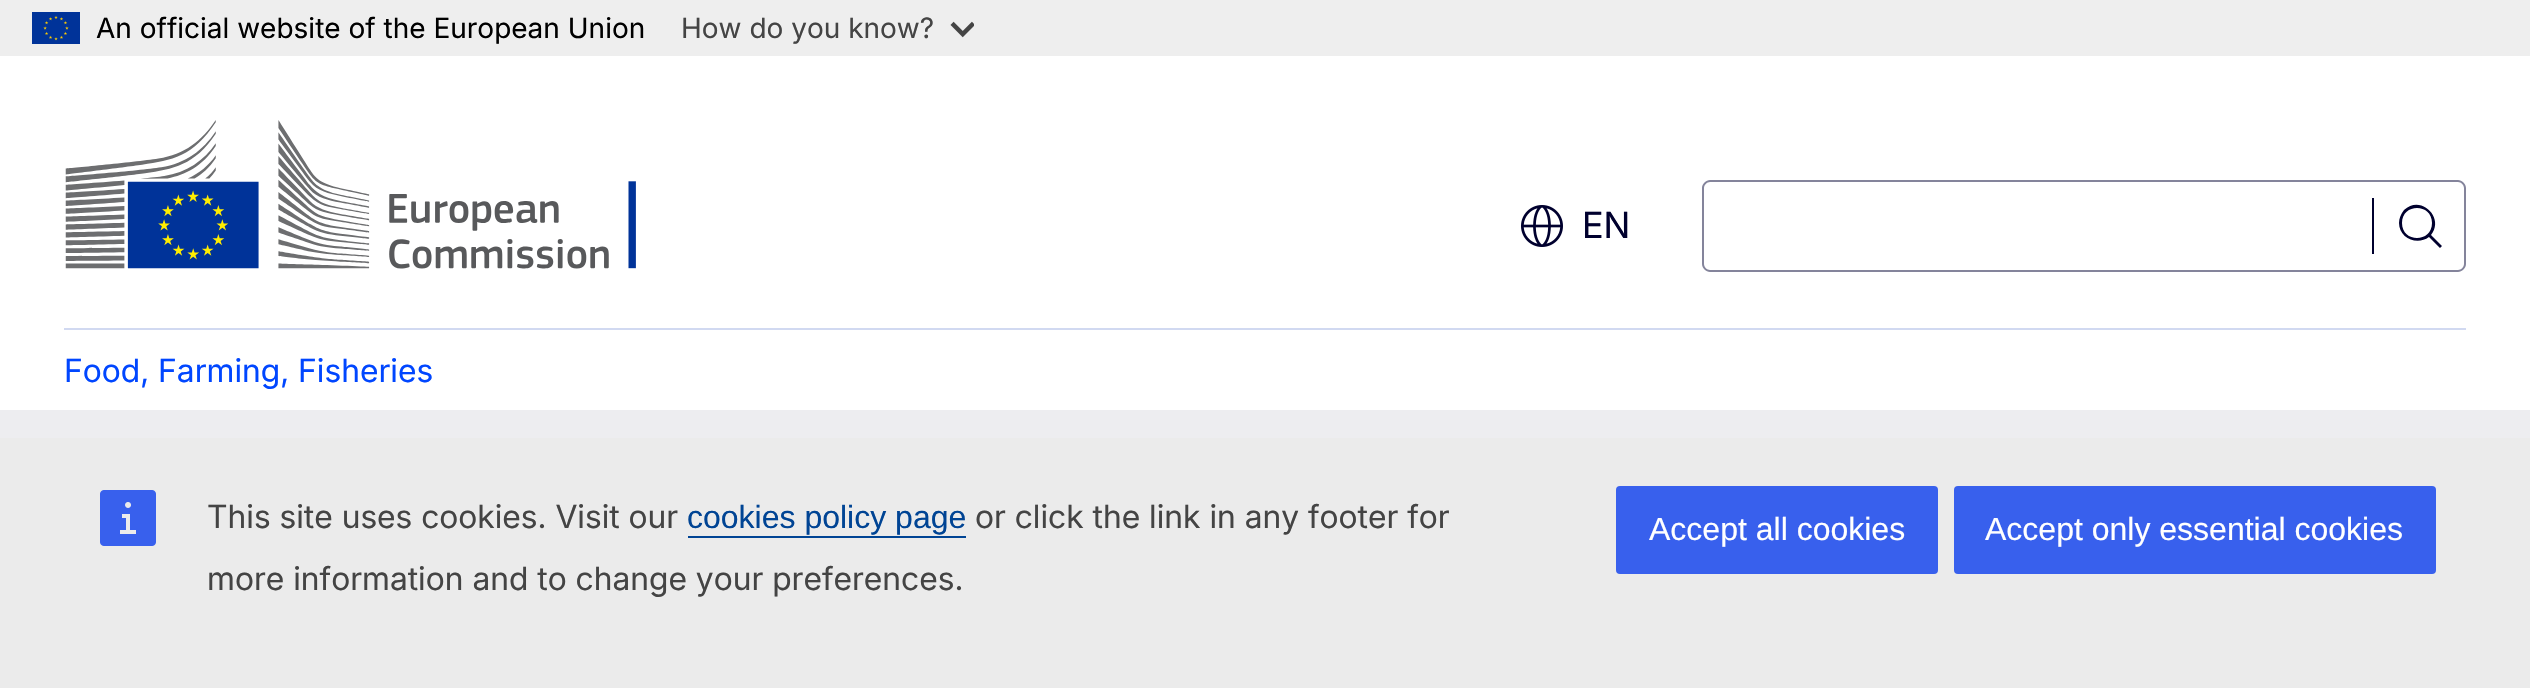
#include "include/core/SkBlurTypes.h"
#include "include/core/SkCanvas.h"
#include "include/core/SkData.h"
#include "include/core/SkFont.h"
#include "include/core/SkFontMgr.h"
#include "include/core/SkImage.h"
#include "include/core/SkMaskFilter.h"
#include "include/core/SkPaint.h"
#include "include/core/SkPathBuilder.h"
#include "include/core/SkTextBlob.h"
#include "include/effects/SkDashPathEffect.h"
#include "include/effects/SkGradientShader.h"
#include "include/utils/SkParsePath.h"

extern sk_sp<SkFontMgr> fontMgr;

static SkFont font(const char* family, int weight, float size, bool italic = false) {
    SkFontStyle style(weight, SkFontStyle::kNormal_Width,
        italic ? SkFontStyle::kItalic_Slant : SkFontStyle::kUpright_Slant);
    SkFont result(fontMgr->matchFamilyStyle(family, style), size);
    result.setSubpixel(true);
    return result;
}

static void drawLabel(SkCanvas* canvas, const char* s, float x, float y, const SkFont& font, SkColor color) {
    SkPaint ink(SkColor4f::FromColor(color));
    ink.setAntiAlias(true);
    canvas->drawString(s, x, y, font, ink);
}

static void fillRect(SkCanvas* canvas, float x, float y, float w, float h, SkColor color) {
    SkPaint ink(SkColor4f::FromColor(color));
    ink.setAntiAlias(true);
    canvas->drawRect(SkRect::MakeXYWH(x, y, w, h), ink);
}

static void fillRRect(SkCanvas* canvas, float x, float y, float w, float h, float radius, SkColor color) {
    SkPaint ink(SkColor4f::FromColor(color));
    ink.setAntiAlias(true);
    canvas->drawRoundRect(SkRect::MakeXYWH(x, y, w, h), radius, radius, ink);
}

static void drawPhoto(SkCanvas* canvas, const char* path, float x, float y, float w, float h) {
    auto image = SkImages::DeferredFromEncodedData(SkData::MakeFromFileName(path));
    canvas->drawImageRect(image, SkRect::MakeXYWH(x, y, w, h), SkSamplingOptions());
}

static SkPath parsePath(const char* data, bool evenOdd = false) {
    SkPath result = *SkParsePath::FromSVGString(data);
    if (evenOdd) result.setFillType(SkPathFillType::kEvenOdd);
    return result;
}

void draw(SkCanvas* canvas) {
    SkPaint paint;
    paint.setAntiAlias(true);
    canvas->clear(0xFFFFFFFF);
    fillRect(canvas, 0, 0, 2530, 56, 0xFFEEEEEE);
    drawPhoto(canvas, "assets/img1.png", 32, 12, 48, 32);
    SkFont font1 = font("Inter", 400, 28);
    drawLabel(canvas, "An official website of the European Union", 96, 38, font1, 0xFF000000);
    drawLabel(canvas, "How do you know?", 681, 38, font1, 0xFF444444);
    drawPhoto(canvas, "assets/img2.png", 950, 21, 24, 17);
    drawPhoto(canvas, "assets/img3.png", 65, 120, 571, 149);
    drawPhoto(canvas, "assets/img4.png", 1521, 205, 42, 42);
    SkFont font2 = font("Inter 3", 400, 36);
    drawLabel(canvas, "EN", 1582, 238, font2, 0xFF00002E);
    paint.setColor(0xFF84849B);
    canvas->drawPath(parsePath("M1710 180H2374V272H1710C1706 272 1702 268 1702 264V188C1702 184 1706 180 1710 180ZM1710 182H2374V270H1710C1707 270 1704 267 1704 264V188C1704 185 1707 182 1710 182Z", true), paint);
    canvas->drawPath(parsePath("M2374 180H2458C2462 180 2466 184 2466 188V264C2466 268 2462 272 2458 272H2374ZM2374 182H2458C2461 182 2464 185 2464 188V264C2464 267 2461 270 2458 270H2374Z", true), paint);
    fillRect(canvas, 2372, 198, 2, 56, 0xFF00002E);
    paint.setColor(0xFF00002E);
    canvas->drawPath(parsePath("M2399 223C2399 218 2401 214 2404 210C2421 194 2445 218 2431 235L2442 246L2440 248L2429 237C2417 246 2399 238 2399 223M2432 223C2432 203 2402 203 2402 223C2402 243 2432 243 2432 223", true), paint);
    fillRect(canvas, 64, 328, 2402, 2, 0xFFD1D9F1);
    SkFont font3 = font("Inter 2", 400, 32);
    drawLabel(canvas, "Food, Farming, Fisheries", 64, 382, font3, 0xFF0046FF);
    fillRect(canvas, 0, 410, 2530, 28, 0xFFEDEDF0);
    fillRect(canvas, 0, 438, 2530, 250, 0xFFEBEBEB);
    drawPhoto(canvas, "assets/img5.png", 100, 490, 56, 56);
    drawLabel(canvas, "This site uses cookies. Visit our", 207, 528, font3, 0xFF444444);
    SkFont font4 = font("Liberation Sans", 400, 32);
    drawLabel(canvas, "cookies policy page", 687, 528, font4, 0xFF004494);
    fillRect(canvas, 688, 536, 278, 2, 0xFF004494);
    drawLabel(canvas, "or click the link in any footer for", 975, 528, font3, 0xFF444444);
    drawLabel(canvas, "more information and to change your preferences.", 207, 590, font3, 0xFF444444);
    fillRRect(canvas, 1616, 486, 322, 88, 4, 0xFF3860ED);
    drawLabel(canvas, "Accept all cookies", 1649, 540, font4, 0xFFFFFFFF);
    fillRRect(canvas, 1954, 486, 482, 88, 4, 0xFF3860ED);
    drawLabel(canvas, "Accept only essential cookies", 1985, 540, font4, 0xFFFFFFFF);
}
